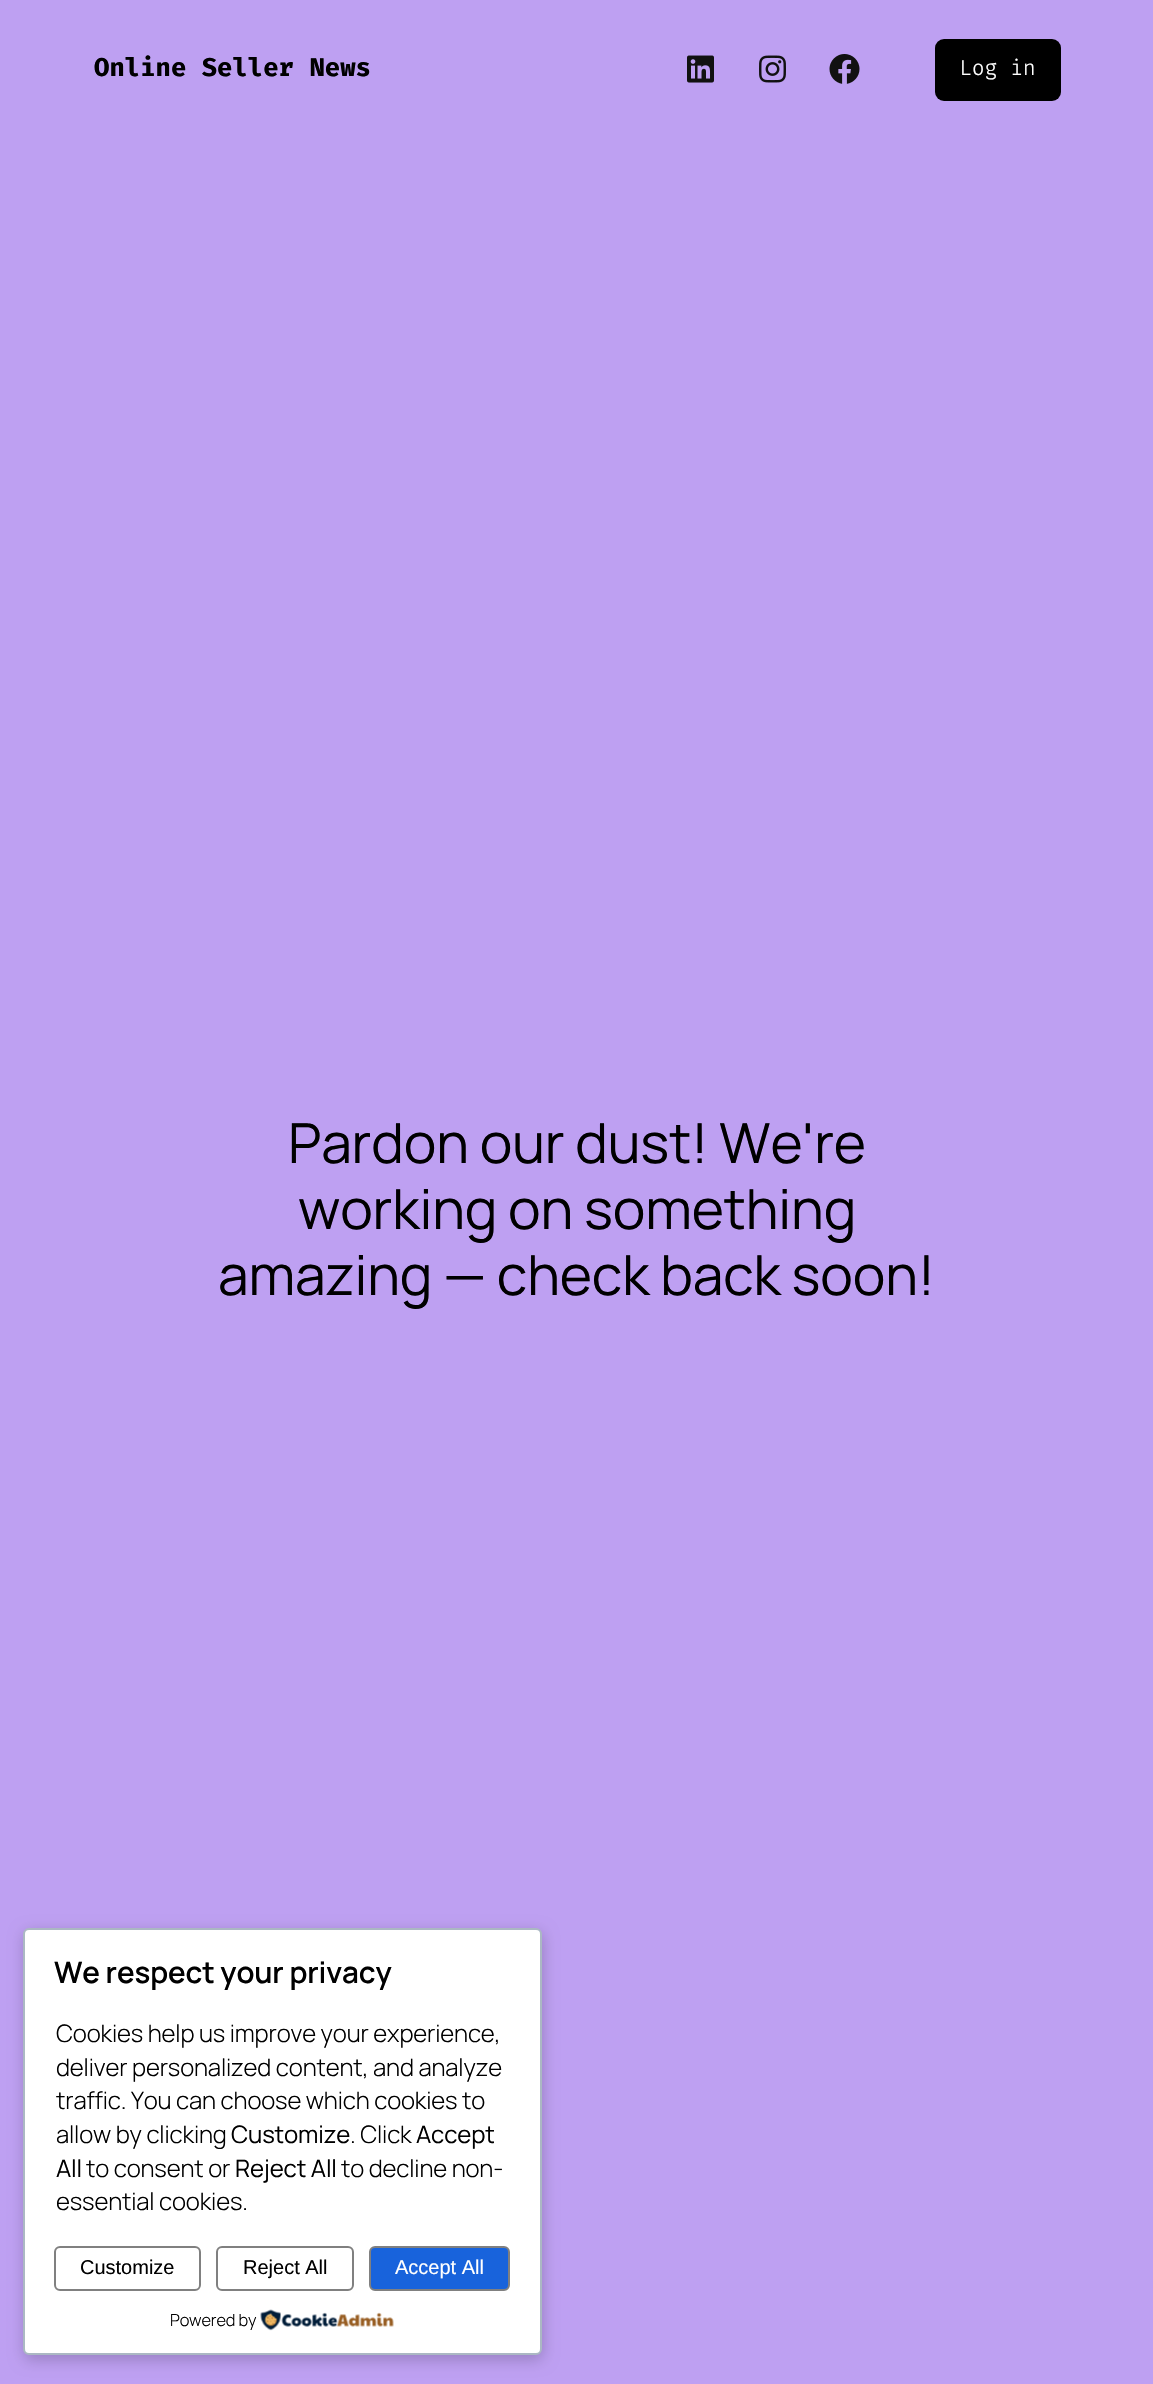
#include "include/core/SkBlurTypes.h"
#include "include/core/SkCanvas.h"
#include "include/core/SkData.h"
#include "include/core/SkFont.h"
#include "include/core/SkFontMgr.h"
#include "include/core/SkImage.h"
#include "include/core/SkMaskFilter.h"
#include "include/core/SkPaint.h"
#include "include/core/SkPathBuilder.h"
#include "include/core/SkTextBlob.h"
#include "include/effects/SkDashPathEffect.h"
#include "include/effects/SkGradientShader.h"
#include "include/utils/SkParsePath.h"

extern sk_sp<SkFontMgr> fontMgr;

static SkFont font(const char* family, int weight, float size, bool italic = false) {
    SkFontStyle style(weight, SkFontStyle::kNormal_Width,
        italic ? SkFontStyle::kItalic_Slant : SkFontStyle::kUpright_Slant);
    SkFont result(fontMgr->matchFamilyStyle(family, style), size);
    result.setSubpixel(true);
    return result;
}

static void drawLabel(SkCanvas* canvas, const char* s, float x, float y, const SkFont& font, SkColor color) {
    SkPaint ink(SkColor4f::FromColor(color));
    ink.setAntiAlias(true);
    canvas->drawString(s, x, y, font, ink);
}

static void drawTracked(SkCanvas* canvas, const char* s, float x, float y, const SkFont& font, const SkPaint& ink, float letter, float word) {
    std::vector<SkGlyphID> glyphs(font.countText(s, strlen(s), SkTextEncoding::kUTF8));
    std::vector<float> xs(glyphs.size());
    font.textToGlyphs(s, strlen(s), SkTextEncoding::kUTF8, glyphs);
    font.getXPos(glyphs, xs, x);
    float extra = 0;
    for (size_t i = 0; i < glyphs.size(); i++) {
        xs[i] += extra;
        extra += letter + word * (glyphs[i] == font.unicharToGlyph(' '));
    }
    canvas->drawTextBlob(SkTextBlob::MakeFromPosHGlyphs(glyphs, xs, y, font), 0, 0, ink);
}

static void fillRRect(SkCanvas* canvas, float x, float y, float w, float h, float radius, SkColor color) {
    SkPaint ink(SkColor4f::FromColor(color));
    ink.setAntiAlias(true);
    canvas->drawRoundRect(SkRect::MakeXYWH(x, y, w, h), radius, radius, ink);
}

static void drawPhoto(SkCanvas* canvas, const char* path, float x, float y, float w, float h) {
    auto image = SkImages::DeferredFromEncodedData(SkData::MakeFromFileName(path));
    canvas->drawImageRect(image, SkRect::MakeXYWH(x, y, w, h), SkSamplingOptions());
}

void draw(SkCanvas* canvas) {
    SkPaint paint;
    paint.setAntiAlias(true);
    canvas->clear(0xFFBEA0F2);
    SkFont font1 = font("Fira Code", 700, 25);
    drawLabel(canvas, "Online Seller News", 94, 76, font1, 0xFF000000);
    drawPhoto(canvas, "assets/img1.png", 687, 55, 27, 28);
    drawPhoto(canvas, "assets/img2.png", 759, 55, 27, 28);
    drawPhoto(canvas, "assets/img3.png", 829, 54, 31, 30);
    fillRRect(canvas, 935, 39, 126, 62, 9, 0xFF000000);
    SkFont font2 = font("Fira Code", 300, 21);
    paint.setColor(0xFFFFFFFF);
    drawTracked(canvas, "Log in", 959, 75, font2, paint, -0.15f, 0);
    SkFont font3 = font("Manrope", 400, 55.1f);
    paint.setColor(0xFF000000);
    drawTracked(canvas, "Pardon our dust! We're", 288, 1163, font3, paint, -0.15f, 0);
    drawTracked(canvas, "working on something", 298, 1229, font3, paint, -0.15f, 0);
    drawTracked(canvas, "amazing — check back soon!", 218, 1295, font3, paint, -0.15f, 0);
    paint.setColor(0x33000000);
    paint.setMaskFilter(SkMaskFilter::MakeBlur(kNormal_SkBlurStyle, 7.5f));
    canvas->drawRoundRect(SkRect::MakeXYWH(24, 1932, 519, 428), 6, 6, paint);
    paint.setMaskFilter(nullptr);
    paint.setColor(0xFFFFFFFF);
    canvas->drawRoundRect(SkRect::MakeXYWH(24, 1929, 517, 425), 5, 5, paint);
    paint.setStroke(true);
    paint.setStrokeWidth(2);
    paint.setColor(0xFFABB8C3);
    canvas->drawRoundRect(SkRect::MakeXYWH(24, 1929, 517, 425), 5, 5, paint);
    SkFont font4 = font("Manrope", 600, 29.6f);
    paint.setStroke(false);
    paint.setColor(0xFF000000);
    drawTracked(canvas, "We respect your privacy", 54, 1983, font4, paint, -0.15f, 0);
    SkFont font5 = font("Manrope", 300, 24);
    drawTracked(canvas, "Cookies help us improve your experience,", 56, 2042, font5, paint, -0.15f, 0);
    drawTracked(canvas, "deliver personalized content, and analyze", 56, 2076, font5, paint, -0.15f, 0);
    drawTracked(canvas, "traffic. You can choose which cookies to", 56, 2109, font5, paint, -0.15f, 0);
    drawTracked(canvas, "allow by clicking", 56, 2143, font5, paint, -0.15f, 0);
    SkFont font6 = font("Manrope", 400, 24);
    drawTracked(canvas, "Customize", 231, 2143, font6, paint, -0.15f, 0);
    drawTracked(canvas, ". Click", 350, 2143, font5, paint, -0.15f, 0);
    drawTracked(canvas, "Accept", 416, 2143, font6, paint, -0.15f, 0);
    drawTracked(canvas, "All", 56, 2177, font6, paint, -0.15f, 0);
    drawTracked(canvas, "to consent or", 86, 2177, font5, paint, -0.15f, 0);
    drawTracked(canvas, "Reject All", 235, 2177, font6, paint, -0.15f, 0);
    drawTracked(canvas, "to decline non-", 341, 2177, font5, paint, -0.15f, 0);
    drawTracked(canvas, "essential cookies.", 56, 2210, font5, paint, -0.15f, 0);
    paint.setStroke(true);
    paint.setColor(0xFF808080);
    canvas->drawRoundRect(SkRect::MakeXYWH(55, 2247, 145, 43), 5, 5, paint);
    SkFont font7 = font("Liberation Sans", 400, 20);
    drawLabel(canvas, "Customize", 80, 2274, font7, 0xFF000000);
    canvas->drawRoundRect(SkRect::MakeXYWH(217, 2247, 136, 43), 5, 5, paint);
    drawLabel(canvas, "Reject All", 243, 2274, font7, 0xFF000000);
    paint.setStroke(false);
    paint.setColor(0xFF1863DC);
    canvas->drawRoundRect(SkRect::MakeXYWH(370, 2247, 139, 43), 5, 5, paint);
    paint.setStroke(true);
    paint.setColor(0xFF808080);
    canvas->drawRoundRect(SkRect::MakeXYWH(370, 2247, 139, 43), 5, 5, paint);
    drawLabel(canvas, "Accept All", 395, 2274, font7, 0xFFFFFFFF);
    SkFont font8 = font("Manrope", 300, 16.5f);
    paint.setStroke(false);
    paint.setColor(0xFF000000);
    drawTracked(canvas, "Powered by", 170, 2326, font8, paint, -0.15f, 0);
    drawPhoto(canvas, "assets/img4.png", 260, 2309, 134, 22);
}
